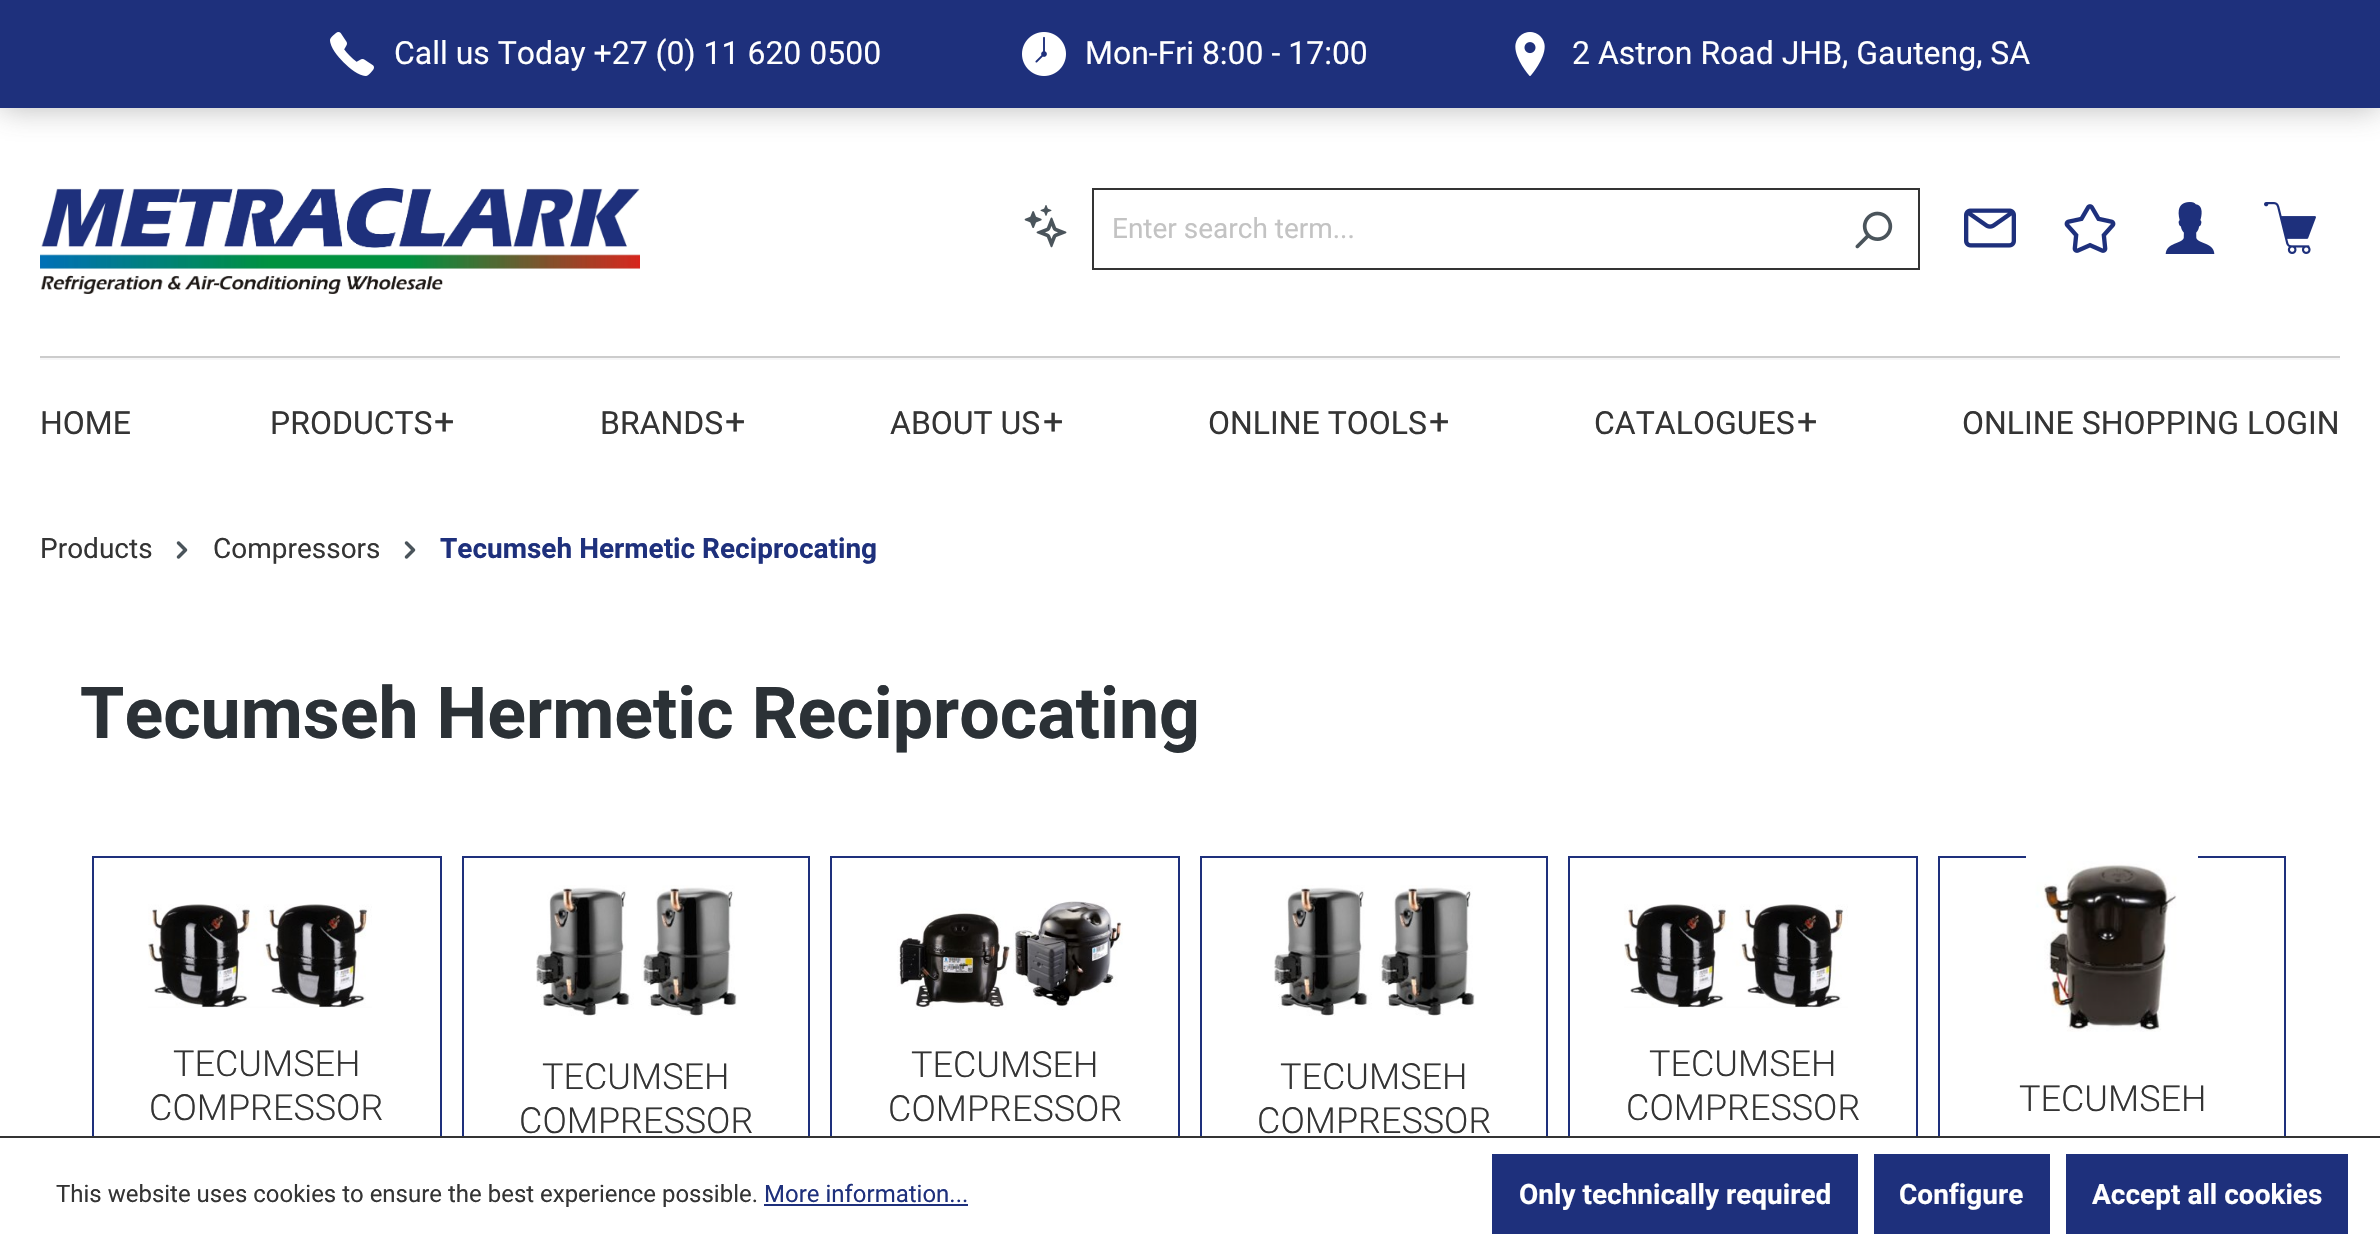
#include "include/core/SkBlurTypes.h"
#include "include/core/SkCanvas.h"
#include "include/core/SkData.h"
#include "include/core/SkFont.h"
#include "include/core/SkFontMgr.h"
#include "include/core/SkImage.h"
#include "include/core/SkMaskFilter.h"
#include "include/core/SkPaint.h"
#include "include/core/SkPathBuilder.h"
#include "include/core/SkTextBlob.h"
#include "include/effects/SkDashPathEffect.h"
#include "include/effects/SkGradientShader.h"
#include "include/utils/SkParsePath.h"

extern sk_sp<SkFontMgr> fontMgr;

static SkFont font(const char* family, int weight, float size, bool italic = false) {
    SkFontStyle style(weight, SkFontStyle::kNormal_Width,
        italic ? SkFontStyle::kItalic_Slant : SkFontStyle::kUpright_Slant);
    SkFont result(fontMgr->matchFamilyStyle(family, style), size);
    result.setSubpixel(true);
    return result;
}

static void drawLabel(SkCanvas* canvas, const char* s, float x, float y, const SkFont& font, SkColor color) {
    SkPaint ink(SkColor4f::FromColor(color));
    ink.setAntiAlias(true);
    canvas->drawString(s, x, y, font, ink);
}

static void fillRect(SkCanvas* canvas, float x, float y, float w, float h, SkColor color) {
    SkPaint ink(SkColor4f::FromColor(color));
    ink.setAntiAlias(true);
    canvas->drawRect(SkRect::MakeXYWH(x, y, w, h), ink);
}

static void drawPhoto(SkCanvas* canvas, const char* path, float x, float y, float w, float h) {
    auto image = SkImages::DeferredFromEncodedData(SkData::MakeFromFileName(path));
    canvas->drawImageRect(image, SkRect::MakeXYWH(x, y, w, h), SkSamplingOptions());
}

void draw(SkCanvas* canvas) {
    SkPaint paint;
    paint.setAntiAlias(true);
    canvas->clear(0xFFFFFFFF);
    paint.setColor(0x664E4E4E);
    paint.setMaskFilter(SkMaskFilter::MakeBlur(kNormal_SkBlurStyle, 15));
    canvas->drawRect(SkRect::MakeXYWH(0, 0, 2380, 108), paint);
    paint.setMaskFilter(nullptr);
    fillRect(canvas, 0, 0, 2380, 108, 0xFF1E307C);
    drawPhoto(canvas, "assets/img1.png", 330, 32, 44, 44);
    SkFont font1 = font("Roboto", 400, 32);
    drawLabel(canvas, "Call us Today +27 (0) 11 620 0500", 394, 64, font1, 0xFFFFFFFF);
    drawPhoto(canvas, "assets/img2.png", 1022, 32, 44, 44);
    drawLabel(canvas, "Mon-Fri 8:00 - 17:00", 1085, 64, font1, 0xFFFFFFFF);
    drawPhoto(canvas, "assets/img3.png", 1515, 32, 30, 44);
    drawLabel(canvas, "2 Astron Road JHB, Gauteng, SA", 1572, 64, font1, 0xFFFFFFFF);
    drawPhoto(canvas, "assets/img4.png", 40, 188, 600, 106);
    drawPhoto(canvas, "assets/img5.png", 1024, 205, 43, 43);
    fillRect(canvas, 1092, 188, 828, 2, 0xFF343434);
    fillRect(canvas, 1092, 268, 736, 2, 0xFF343434);
    fillRect(canvas, 1092, 188, 2, 82, 0xFF343434);
    SkFont font2 = font("Roboto", 400, 28);
    drawLabel(canvas, "Enter search term...", 1112, 238, font2, 0xFFC3C3C3);
    fillRect(canvas, 1918, 188, 2, 82, 0xFF343434);
    fillRect(canvas, 1826, 268, 94, 2, 0xFF343434);
    drawPhoto(canvas, "assets/img6.png", 1855, 211, 38, 38);
    drawPhoto(canvas, "assets/img7.png", 1964, 208, 52, 40);
    drawPhoto(canvas, "assets/img8.png", 2064, 204, 52, 49);
    drawPhoto(canvas, "assets/img9.png", 2165, 202, 50, 52);
    drawPhoto(canvas, "assets/img10.png", 2264, 202, 52, 52);
    fillRect(canvas, 40, 356, 2300, 2, 0xFFCCCCCC);
    fillRect(canvas, 40, 358, 2300, 2, 0xFFF6F6F7);
    drawLabel(canvas, "HOME", 40, 434, font1, 0xFF343434);
    drawLabel(canvas, "PRODUCTS", 270, 434, font1, 0xFF343434);
    SkFont font3 = font("Roboto", 400, 36);
    drawLabel(canvas, "+", 434, 434, font3, 0xFF343434);
    drawLabel(canvas, "BRANDS", 600, 434, font1, 0xFF343434);
    drawLabel(canvas, "+", 725, 434, font3, 0xFF343434);
    drawLabel(canvas, "ABOUT US", 890, 434, font1, 0xFF343434);
    drawLabel(canvas, "+", 1043, 434, font3, 0xFF343434);
    drawLabel(canvas, "ONLINE TOOLS", 1208, 434, font1, 0xFF343434);
    drawLabel(canvas, "+", 1429, 434, font3, 0xFF343434);
    drawLabel(canvas, "CATALOGUES", 1594, 434, font1, 0xFF343434);
    drawLabel(canvas, "+", 1797, 434, font3, 0xFF343434);
    drawLabel(canvas, "ONLINE SHOPPING LOGIN", 1962, 434, font1, 0xFF343434);
    drawLabel(canvas, "Products", 40, 558, font2, 0xFF343434);
    drawPhoto(canvas, "assets/img11.png", 176, 541, 12, 18);
    drawLabel(canvas, "Compressors", 213, 558, font2, 0xFF343434);
    drawPhoto(canvas, "assets/img11.png", 404, 541, 12, 18);
    SkFont font4 = font("Roboto", 700, 28);
    drawLabel(canvas, "Tecumseh Hermetic Reciprocating", 440, 558, font4, 0xFF1E307C);
    SkFont font5 = font("Roboto", 700, 71.75f);
    drawLabel(canvas, "Tecumseh Hermetic Reciprocating", 80, 738, font5, 0xFF2B3136);
    paint.setStroke(true);
    paint.setStrokeWidth(2);
    paint.setColor(0xFF1E307C);
    canvas->drawRect(SkRect::MakeXYWH(93, 857, 348, 388), paint);
    drawPhoto(canvas, "assets/img12.png", 148, 904, 224, 104);
    SkFont font6 = font("Roboto", 300, 36);
    drawLabel(canvas, "TECUMSEH", 173, 1076, font6, 0xFF343434);
    drawLabel(canvas, "COMPRESSOR", 149, 1120, font6, 0xFF343434);
    canvas->drawRect(SkRect::MakeXYWH(463, 857, 346, 388), paint);
    drawPhoto(canvas, "assets/img13.png", 536, 885, 201, 131);
    drawLabel(canvas, "TECUMSEH", 542, 1089, font6, 0xFF343434);
    drawLabel(canvas, "COMPRESSOR", 519, 1133, font6, 0xFF343434);
    canvas->drawRect(SkRect::MakeXYWH(831, 857, 348, 388), paint);
    drawPhoto(canvas, "assets/img14.png", 897, 901, 226, 109);
    drawLabel(canvas, "TECUMSEH", 911, 1077, font6, 0xFF343434);
    drawLabel(canvas, "COMPRESSOR", 888, 1121, font6, 0xFF343434);
    canvas->drawRect(SkRect::MakeXYWH(1201, 857, 346, 388), paint);
    drawPhoto(canvas, "assets/img15.png", 1274, 885, 201, 131);
    drawLabel(canvas, "TECUMSEH", 1280, 1089, font6, 0xFF343434);
    drawLabel(canvas, "COMPRESSOR", 1257, 1133, font6, 0xFF343434);
    canvas->drawRect(SkRect::MakeXYWH(1569, 857, 348, 388), paint);
    drawPhoto(canvas, "assets/img16.png", 1624, 904, 224, 104);
    drawLabel(canvas, "TECUMSEH", 1649, 1076, font6, 0xFF343434);
    drawLabel(canvas, "COMPRESSOR", 1626, 1120, font6, 0xFF343434);
    canvas->drawRect(SkRect::MakeXYWH(1939, 857, 346, 388), paint);
    drawPhoto(canvas, "assets/img17.png", 2026, 856, 172, 176);
    drawLabel(canvas, "TECUMSEH", 2019, 1111, font6, 0xFF343434);
    fillRect(canvas, 92, 1138, 2194, 108, 0xFFFFFFFF);
    fillRect(canvas, 0, 1136, 2380, 2, 0xFF343434);
    SkFont font7 = font("Roboto", 400, 24);
    drawLabel(canvas, "This website uses cookies to ensure the best experience possible.", 56, 1202, font7, 0xFF343434);
    drawLabel(canvas, "More information...", 764, 1202, font7, 0xFF1E307C);
    fillRect(canvas, 764, 1204, 204, 2, 0xFF1E307C);
    fillRect(canvas, 1492, 1154, 366, 80, 0xFF1E307C);
    drawLabel(canvas, "Only technically required", 1519, 1204, font4, 0xFFFFFFFF);
    fillRect(canvas, 1874, 1154, 176, 80, 0xFF1E307C);
    drawLabel(canvas, "Configure", 1899, 1204, font4, 0xFFFFFFFF);
    fillRect(canvas, 2066, 1154, 282, 80, 0xFF1E307C);
    drawLabel(canvas, "Accept all cookies", 2092, 1204, font4, 0xFFFFFFFF);
}
